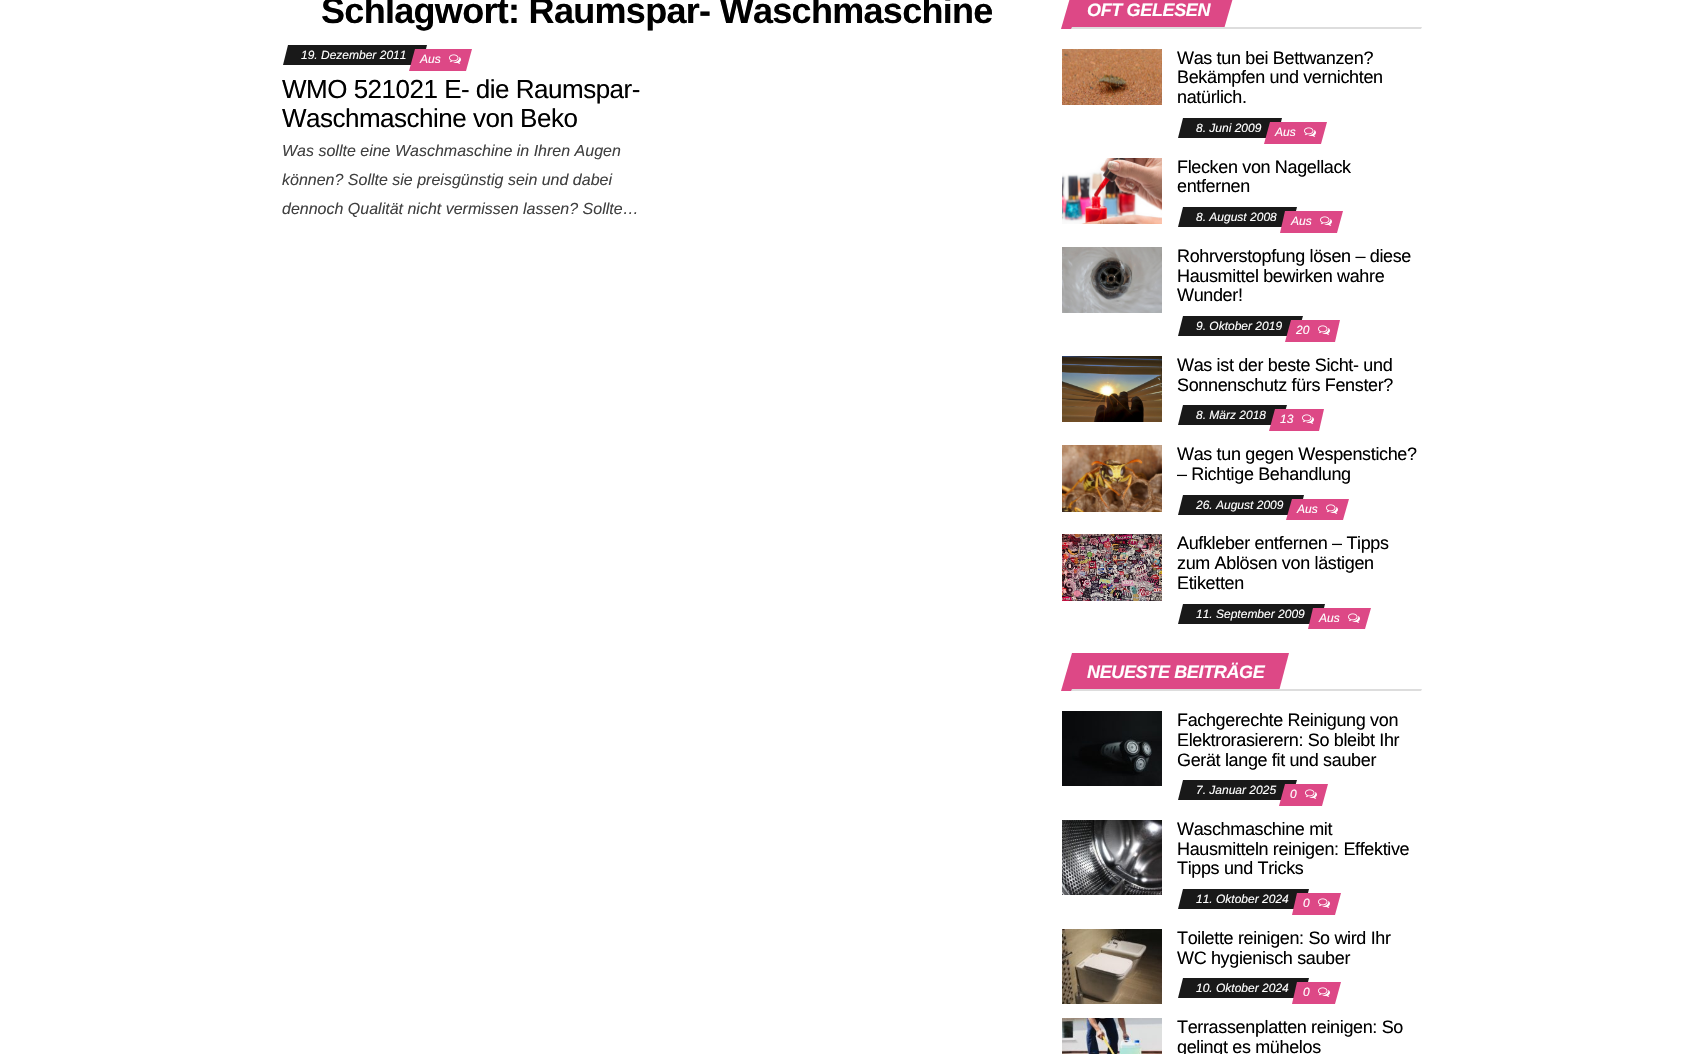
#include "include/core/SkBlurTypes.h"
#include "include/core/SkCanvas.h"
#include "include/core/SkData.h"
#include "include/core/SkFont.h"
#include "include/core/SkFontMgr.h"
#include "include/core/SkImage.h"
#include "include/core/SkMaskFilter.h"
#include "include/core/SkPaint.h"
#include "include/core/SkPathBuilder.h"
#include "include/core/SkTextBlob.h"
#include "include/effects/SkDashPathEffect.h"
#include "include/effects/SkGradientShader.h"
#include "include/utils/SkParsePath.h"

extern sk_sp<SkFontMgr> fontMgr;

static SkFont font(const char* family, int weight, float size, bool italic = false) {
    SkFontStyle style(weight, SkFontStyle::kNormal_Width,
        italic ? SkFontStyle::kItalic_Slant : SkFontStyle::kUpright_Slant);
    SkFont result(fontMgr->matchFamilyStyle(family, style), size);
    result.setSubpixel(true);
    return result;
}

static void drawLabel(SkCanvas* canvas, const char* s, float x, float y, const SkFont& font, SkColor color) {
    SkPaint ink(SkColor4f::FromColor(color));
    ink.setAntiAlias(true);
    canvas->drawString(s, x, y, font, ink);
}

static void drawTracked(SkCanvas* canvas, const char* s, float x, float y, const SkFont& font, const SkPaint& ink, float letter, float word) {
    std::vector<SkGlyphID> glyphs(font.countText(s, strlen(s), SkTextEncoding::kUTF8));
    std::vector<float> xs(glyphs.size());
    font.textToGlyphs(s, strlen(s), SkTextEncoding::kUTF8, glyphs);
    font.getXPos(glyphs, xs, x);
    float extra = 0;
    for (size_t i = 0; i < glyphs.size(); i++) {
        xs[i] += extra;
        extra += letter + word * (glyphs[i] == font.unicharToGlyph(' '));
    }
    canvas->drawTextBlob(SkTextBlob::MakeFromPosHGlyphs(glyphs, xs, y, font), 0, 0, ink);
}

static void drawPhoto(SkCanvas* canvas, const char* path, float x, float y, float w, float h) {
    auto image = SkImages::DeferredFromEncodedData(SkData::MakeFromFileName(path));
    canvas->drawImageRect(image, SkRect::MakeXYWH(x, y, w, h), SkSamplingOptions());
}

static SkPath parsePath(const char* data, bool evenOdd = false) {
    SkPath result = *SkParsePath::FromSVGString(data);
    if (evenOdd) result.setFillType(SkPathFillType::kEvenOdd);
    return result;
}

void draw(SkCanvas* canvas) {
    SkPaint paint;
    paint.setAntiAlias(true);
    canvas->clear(0xFFFFFFFF);
    SkFont font1 = font("Liberation Sans", 700, 36);
    paint.setColor(0xFF000000);
    drawTracked(canvas, "Schlagwort: Raumspar- Waschmaschine", 321, 23, font1, paint, -0.7f, 0);
    paint.setColor(0xFF191919);
    canvas->drawPath(parsePath("M288 45H427L422 65H283Z"), paint);
    SkFont font2 = font("Liberation Sans", 400, 12, true);
    drawLabel(canvas, "19. Dezember 2011", 301, 59, font2, 0xFFFFFFFF);
    paint.setColor(0xFFDD4886);
    canvas->drawPath(parsePath("M415 49H472L466 71H409Z"), paint);
    drawLabel(canvas, "Aus", 420, 63, font2, 0xFFFFFFFF);
    drawPhoto(canvas, "assets/img1.png", 449, 54, 12, 10);
    SkFont font3 = font("Liberation Sans", 400, 26);
    paint.setColor(0xFF000000);
    drawTracked(canvas, "WMO 521021 E- die Raumspar-", 282, 98, font3, paint, -0.5f, 0);
    drawTracked(canvas, "Waschmaschine von Beko", 282, 127, font3, paint, -0.5f, 0);
    SkFont font4 = font("Liberation Sans", 400, 16, true);
    drawLabel(canvas, "Was sollte eine Waschmaschine in Ihren Augen", 282, 156, font4, 0xFF404040);
    drawLabel(canvas, "können? Sollte sie preisgünstig sein und dabei", 282, 185, font4, 0xFF404040);
    drawLabel(canvas, "dennoch Qualität nicht vermissen lassen? Sollte…", 282, 214, font4, 0xFF404040);
    paint.setColor(0xFFDD4886);
    canvas->drawPath(parsePath("M1072-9H1235L1224 29H1061Z"), paint);
    SkFont font5 = font("Liberation Sans", 700, 18, true);
    paint.setColor(0xFFFFFFFF);
    drawTracked(canvas, "OFT GELESEN", 1087, 16, font5, paint, -0.35f, 0);
    paint.setColor(0xFFDDDDDD);
    canvas->drawPath(parsePath("M1072 27H1422L1421 29H1071Z"), paint);
    drawPhoto(canvas, "assets/img2.png", 1062, 49, 100, 56);
    SkFont font6 = font("Liberation Sans", 400, 18);
    paint.setColor(0xFF000000);
    drawTracked(canvas, "Was tun bei Bettwanzen?", 1177, 64, font6, paint, -0.35f, 0);
    drawTracked(canvas, "Bekämpfen und vernichten", 1177, 83, font6, paint, -0.35f, 0);
    drawTracked(canvas, "natürlich.", 1177, 103, font6, paint, -0.35f, 0);
    paint.setColor(0xFF191919);
    canvas->drawPath(parsePath("M1183 118H1282L1277 138H1178Z"), paint);
    drawLabel(canvas, "8. Juni 2009", 1196, 132, font2, 0xFFFFFFFF);
    paint.setColor(0xFFDD4886);
    canvas->drawPath(parsePath("M1270 122H1327L1321 144H1264Z"), paint);
    drawLabel(canvas, "Aus", 1275, 136, font2, 0xFFFFFFFF);
    drawPhoto(canvas, "assets/img1.png", 1304, 127, 12, 10);
    drawPhoto(canvas, "assets/img3.png", 1062, 158, 100, 66);
    paint.setColor(0xFF000000);
    drawTracked(canvas, "Flecken von Nagellack", 1177, 173, font6, paint, -0.35f, 0);
    drawTracked(canvas, "entfernen", 1177, 192, font6, paint, -0.35f, 0);
    paint.setColor(0xFF191919);
    canvas->drawPath(parsePath("M1183 207H1297L1292 227H1178Z"), paint);
    drawLabel(canvas, "8. August 2008", 1196, 221, font2, 0xFFFFFFFF);
    paint.setColor(0xFFDD4886);
    canvas->drawPath(parsePath("M1285 211H1343L1337 233H1280Z"), paint);
    drawLabel(canvas, "Aus", 1291, 225, font2, 0xFFFFFFFF);
    drawPhoto(canvas, "assets/img1.png", 1320, 216, 12, 10);
    drawPhoto(canvas, "assets/img4.png", 1062, 247, 100, 66);
    paint.setColor(0xFF000000);
    drawTracked(canvas, "Rohrverstopfung lösen – diese", 1177, 262, font6, paint, -0.35f, 0);
    drawTracked(canvas, "Hausmittel bewirken wahre", 1177, 282, font6, paint, -0.35f, 0);
    drawTracked(canvas, "Wunder!", 1177, 301, font6, paint, -0.35f, 0);
    paint.setColor(0xFF191919);
    canvas->drawPath(parsePath("M1183 316H1303L1297 336H1178Z"), paint);
    drawLabel(canvas, "9. Oktober 2019", 1196, 330, font2, 0xFFFFFFFF);
    paint.setColor(0xFFDD4886);
    canvas->drawPath(parsePath("M1291 320H1340L1335 342H1285Z"), paint);
    drawLabel(canvas, "20", 1296, 334, font2, 0xFFFFFFFF);
    drawPhoto(canvas, "assets/img1.png", 1318, 325, 12, 10);
    drawPhoto(canvas, "assets/img5.png", 1062, 356, 100, 66);
    paint.setColor(0xFF000000);
    drawTracked(canvas, "Was ist der beste Sicht- und", 1177, 371, font6, paint, -0.35f, 0);
    drawTracked(canvas, "Sonnenschutz fürs Fenster?", 1177, 391, font6, paint, -0.35f, 0);
    paint.setColor(0xFF191919);
    canvas->drawPath(parsePath("M1183 405H1287L1281 425H1178Z"), paint);
    drawLabel(canvas, "8. März 2018", 1196, 419, font2, 0xFFFFFFFF);
    paint.setColor(0xFFDD4886);
    canvas->drawPath(parsePath("M1275 409H1324L1319 431H1269Z"), paint);
    drawLabel(canvas, "13", 1280, 423, font2, 0xFFFFFFFF);
    drawPhoto(canvas, "assets/img1.png", 1302, 414, 12, 10);
    drawPhoto(canvas, "assets/img6.png", 1062, 445, 100, 67);
    paint.setColor(0xFF000000);
    drawTracked(canvas, "Was tun gegen Wespenstiche?", 1177, 460, font6, paint, -0.35f, 0);
    drawTracked(canvas, "– Richtige Behandlung", 1177, 480, font6, paint, -0.35f, 0);
    paint.setColor(0xFF191919);
    canvas->drawPath(parsePath("M1183 495H1304L1299 515H1178Z"), paint);
    drawLabel(canvas, "26. August 2009", 1196, 509, font2, 0xFFFFFFFF);
    paint.setColor(0xFFDD4886);
    canvas->drawPath(parsePath("M1292 499H1349L1343 520H1286Z"), paint);
    drawLabel(canvas, "Aus", 1297, 513, font2, 0xFFFFFFFF);
    drawPhoto(canvas, "assets/img1.png", 1326, 504, 12, 10);
    drawPhoto(canvas, "assets/img7.png", 1062, 534, 100, 67);
    paint.setColor(0xFF000000);
    drawTracked(canvas, "Aufkleber entfernen – Tipps", 1177, 549, font6, paint, -0.35f, 0);
    drawTracked(canvas, "zum Ablösen von lästigen", 1177, 569, font6, paint, -0.35f, 0);
    drawTracked(canvas, "Etiketten", 1177, 589, font6, paint, -0.35f, 0);
    paint.setColor(0xFF191919);
    canvas->drawPath(parsePath("M1183 604H1325L1320 624H1178Z"), paint);
    drawLabel(canvas, "11. September 2009", 1196, 618, font2, 0xFFFFFFFF);
    paint.setColor(0xFFDD4886);
    canvas->drawPath(parsePath("M1313 608H1371L1365 629H1308Z"), paint);
    drawLabel(canvas, "Aus", 1319, 622, font2, 0xFFFFFFFF);
    drawPhoto(canvas, "assets/img1.png", 1348, 613, 12, 10);
    canvas->drawPath(parsePath("M1072 653H1289L1279 691H1061Z"), paint);
    paint.setColor(0xFFFFFFFF);
    drawTracked(canvas, "NEUESTE BEITRÄGE", 1087, 678, font5, paint, -0.35f, 0);
    paint.setColor(0xFFDDDDDD);
    canvas->drawPath(parsePath("M1072 689H1422L1421 691H1071Z"), paint);
    drawPhoto(canvas, "assets/img8.png", 1062, 711, 100, 75);
    paint.setColor(0xFF000000);
    drawTracked(canvas, "Fachgerechte Reinigung von", 1177, 726, font6, paint, -0.35f, 0);
    drawTracked(canvas, "Elektrorasierern: So bleibt Ihr", 1177, 746, font6, paint, -0.35f, 0);
    drawTracked(canvas, "Gerät lange fit und sauber", 1177, 766, font6, paint, -0.35f, 0);
    paint.setColor(0xFF191919);
    canvas->drawPath(parsePath("M1183 780H1297L1291 800H1178Z"), paint);
    drawLabel(canvas, "7. Januar 2025", 1196, 794, font2, 0xFFFFFFFF);
    paint.setColor(0xFFDD4886);
    canvas->drawPath(parsePath("M1285 784H1328L1322 806H1279Z"), paint);
    drawLabel(canvas, "0", 1290, 798, font2, 0xFFFFFFFF);
    drawPhoto(canvas, "assets/img1.png", 1305, 789, 12, 10);
    drawPhoto(canvas, "assets/img9.png", 1062, 820, 100, 75);
    paint.setColor(0xFF000000);
    drawTracked(canvas, "Waschmaschine mit", 1177, 835, font6, paint, -0.35f, 0);
    drawTracked(canvas, "Hausmitteln reinigen: Effektive", 1177, 855, font6, paint, -0.35f, 0);
    drawTracked(canvas, "Tipps und Tricks", 1177, 874, font6, paint, -0.35f, 0);
    paint.setColor(0xFF191919);
    canvas->drawPath(parsePath("M1183 889H1309L1304 909H1178Z"), paint);
    drawLabel(canvas, "11. Oktober 2024", 1196, 903, font2, 0xFFFFFFFF);
    paint.setColor(0xFFDD4886);
    canvas->drawPath(parsePath("M1297 893H1341L1335 915H1292Z"), paint);
    drawLabel(canvas, "0", 1303, 907, font2, 0xFFFFFFFF);
    drawPhoto(canvas, "assets/img1.png", 1318, 898, 12, 10);
    drawPhoto(canvas, "assets/img10.png", 1062, 929, 100, 75);
    paint.setColor(0xFF000000);
    drawTracked(canvas, "Toilette reinigen: So wird Ihr", 1177, 944, font6, paint, -0.35f, 0);
    drawTracked(canvas, "WC hygienisch sauber", 1177, 964, font6, paint, -0.35f, 0);
    paint.setColor(0xFF191919);
    canvas->drawPath(parsePath("M1183 978H1309L1304 998H1178Z"), paint);
    drawLabel(canvas, "10. Oktober 2024", 1196, 992, font2, 0xFFFFFFFF);
    paint.setColor(0xFFDD4886);
    canvas->drawPath(parsePath("M1297 982H1341L1335 1004H1292Z"), paint);
    drawLabel(canvas, "0", 1303, 996, font2, 0xFFFFFFFF);
    drawPhoto(canvas, "assets/img1.png", 1318, 987, 12, 10);
    drawPhoto(canvas, "assets/img11.png", 1062, 1018, 100, 36);
    paint.setColor(0xFF000000);
    drawTracked(canvas, "Terrassenplatten reinigen: So", 1177, 1033, font6, paint, -0.35f, 0);
    drawTracked(canvas, "gelingt es mühelos", 1177, 1053, font6, paint, -0.35f, 0);
}
